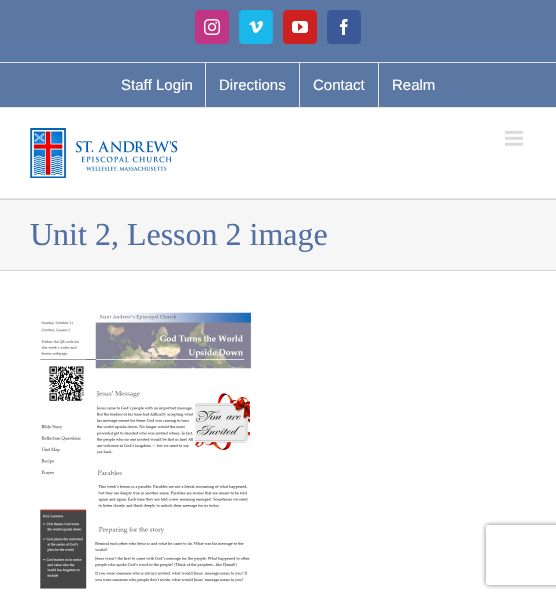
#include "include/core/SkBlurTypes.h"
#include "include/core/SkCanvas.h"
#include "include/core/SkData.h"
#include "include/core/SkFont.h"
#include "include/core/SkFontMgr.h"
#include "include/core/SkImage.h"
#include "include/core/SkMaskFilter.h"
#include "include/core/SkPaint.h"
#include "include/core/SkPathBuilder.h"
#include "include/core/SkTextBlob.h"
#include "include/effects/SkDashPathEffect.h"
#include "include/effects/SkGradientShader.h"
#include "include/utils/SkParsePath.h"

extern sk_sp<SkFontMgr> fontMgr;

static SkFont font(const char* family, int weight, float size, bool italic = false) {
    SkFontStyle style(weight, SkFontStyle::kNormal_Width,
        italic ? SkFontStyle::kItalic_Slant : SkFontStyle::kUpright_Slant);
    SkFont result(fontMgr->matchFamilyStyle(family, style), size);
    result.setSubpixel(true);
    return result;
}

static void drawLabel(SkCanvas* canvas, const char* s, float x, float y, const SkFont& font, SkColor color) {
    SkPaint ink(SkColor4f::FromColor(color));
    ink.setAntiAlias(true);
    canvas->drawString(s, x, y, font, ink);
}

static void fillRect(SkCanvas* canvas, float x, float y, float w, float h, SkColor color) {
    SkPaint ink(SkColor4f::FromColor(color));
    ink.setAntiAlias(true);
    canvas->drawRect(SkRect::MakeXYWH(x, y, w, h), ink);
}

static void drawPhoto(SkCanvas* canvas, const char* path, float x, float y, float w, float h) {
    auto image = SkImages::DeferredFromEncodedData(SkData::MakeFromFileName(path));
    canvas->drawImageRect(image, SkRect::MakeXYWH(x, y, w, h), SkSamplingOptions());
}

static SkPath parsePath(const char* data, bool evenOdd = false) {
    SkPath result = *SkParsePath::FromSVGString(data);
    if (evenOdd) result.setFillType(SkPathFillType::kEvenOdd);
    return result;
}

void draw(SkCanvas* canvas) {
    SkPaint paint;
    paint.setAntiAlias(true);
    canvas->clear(0xFFFFFFFF);
    fillRect(canvas, 0, 0, 556, 107, 0xFF5B77A4);
    fillRect(canvas, 0, 107, 556, 1, 0xFFE5E5E5);
    fillRect(canvas, 0, 62, 556, 1, 0xFFE5E5E5);
    paint.setColor(0xFFC13584);
    canvas->drawRoundRect(SkRect::MakeXYWH(195.5f, 10.5f, 33, 33), 3.5f, 3.5f, paint);
    paint.setStroke(true);
    paint.setStrokeWidth(1);
    canvas->drawRoundRect(SkRect::MakeXYWH(195.5f, 10.5f, 33, 33), 3.5f, 3.5f, paint);
    drawPhoto(canvas, "assets/img1.png", 204, 19, 16, 16);
    paint.setStroke(false);
    paint.setColor(0xFF1AB7EA);
    canvas->drawRoundRect(SkRect::MakeXYWH(239.5f, 10.5f, 33, 33), 3.5f, 3.5f, paint);
    paint.setStroke(true);
    canvas->drawRoundRect(SkRect::MakeXYWH(239.5f, 10.5f, 33, 33), 3.5f, 3.5f, paint);
    drawPhoto(canvas, "assets/img2.png", 249, 21, 14, 13);
    paint.setStroke(false);
    paint.setColor(0xFFCD201F);
    canvas->drawRoundRect(SkRect::MakeXYWH(283.5f, 10.5f, 33, 33), 3.5f, 3.5f, paint);
    paint.setStroke(true);
    canvas->drawRoundRect(SkRect::MakeXYWH(283.5f, 10.5f, 33, 33), 3.5f, 3.5f, paint);
    drawPhoto(canvas, "assets/img3.png", 292, 21, 16, 12);
    paint.setStroke(false);
    paint.setColor(0xFF3B5998);
    canvas->drawRoundRect(SkRect::MakeXYWH(327.5f, 10.5f, 33, 33), 3.5f, 3.5f, paint);
    paint.setStroke(true);
    canvas->drawRoundRect(SkRect::MakeXYWH(327.5f, 10.5f, 33, 33), 3.5f, 3.5f, paint);
    drawPhoto(canvas, "assets/img4.png", 340, 19, 8, 16);
    SkFont font1 = font("Liberation Sans", 400, 15);
    drawLabel(canvas, "Staff Login", 121, 90, font1, 0xFFFFFFFF);
    fillRect(canvas, 205, 63, 1, 44, 0xFFE5E5E5);
    drawLabel(canvas, "Directions", 219, 90, font1, 0xFFFFFFFF);
    fillRect(canvas, 299, 63, 1, 44, 0xFFE5E5E5);
    drawLabel(canvas, "Contact", 313, 90, font1, 0xFFFFFFFF);
    fillRect(canvas, 378, 63, 1, 44, 0xFFE5E5E5);
    drawLabel(canvas, "Realm", 392, 90, font1, 0xFFFFFFFF);
    fillRect(canvas, 0, 198, 556, 1, 0xFFE5E5E5);
    drawPhoto(canvas, "assets/img5.png", 30, 128, 148, 50);
    drawPhoto(canvas, "assets/img6.png", 505, 130, 18, 16);
    fillRect(canvas, 0, 200, 556, 70, 0xFFF6F6F6);
    fillRect(canvas, 0, 199, 556, 1, 0xFFD2D3D4);
    fillRect(canvas, 0, 270, 556, 1, 0xFFD2D3D4);
    SkFont font2 = font("Liberation Serif", 400, 32);
    drawLabel(canvas, "Unit 2, Lesson 2 image", 30, 245, font2, 0xFF516FA3);
    drawPhoto(canvas, "assets/img7.png", 40, 312, 211, 277);
    canvas->save();
    canvas->clipPath(parsePath("M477 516H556V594H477ZM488 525H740C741 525 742 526 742 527V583C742 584 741 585 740 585H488C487 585 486 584 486 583V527C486 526 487 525 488 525Z", true), true);
    paint.setStroke(false);
    paint.setColor(0xFF808080);
    paint.setMaskFilter(SkMaskFilter::MakeBlur(kNormal_SkBlurStyle, 2.5f));
    canvas->drawRoundRect(SkRect::MakeXYWH(486, 525, 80, 60), 2, 2, paint);
    paint.setMaskFilter(nullptr);
    canvas->restore();
}
